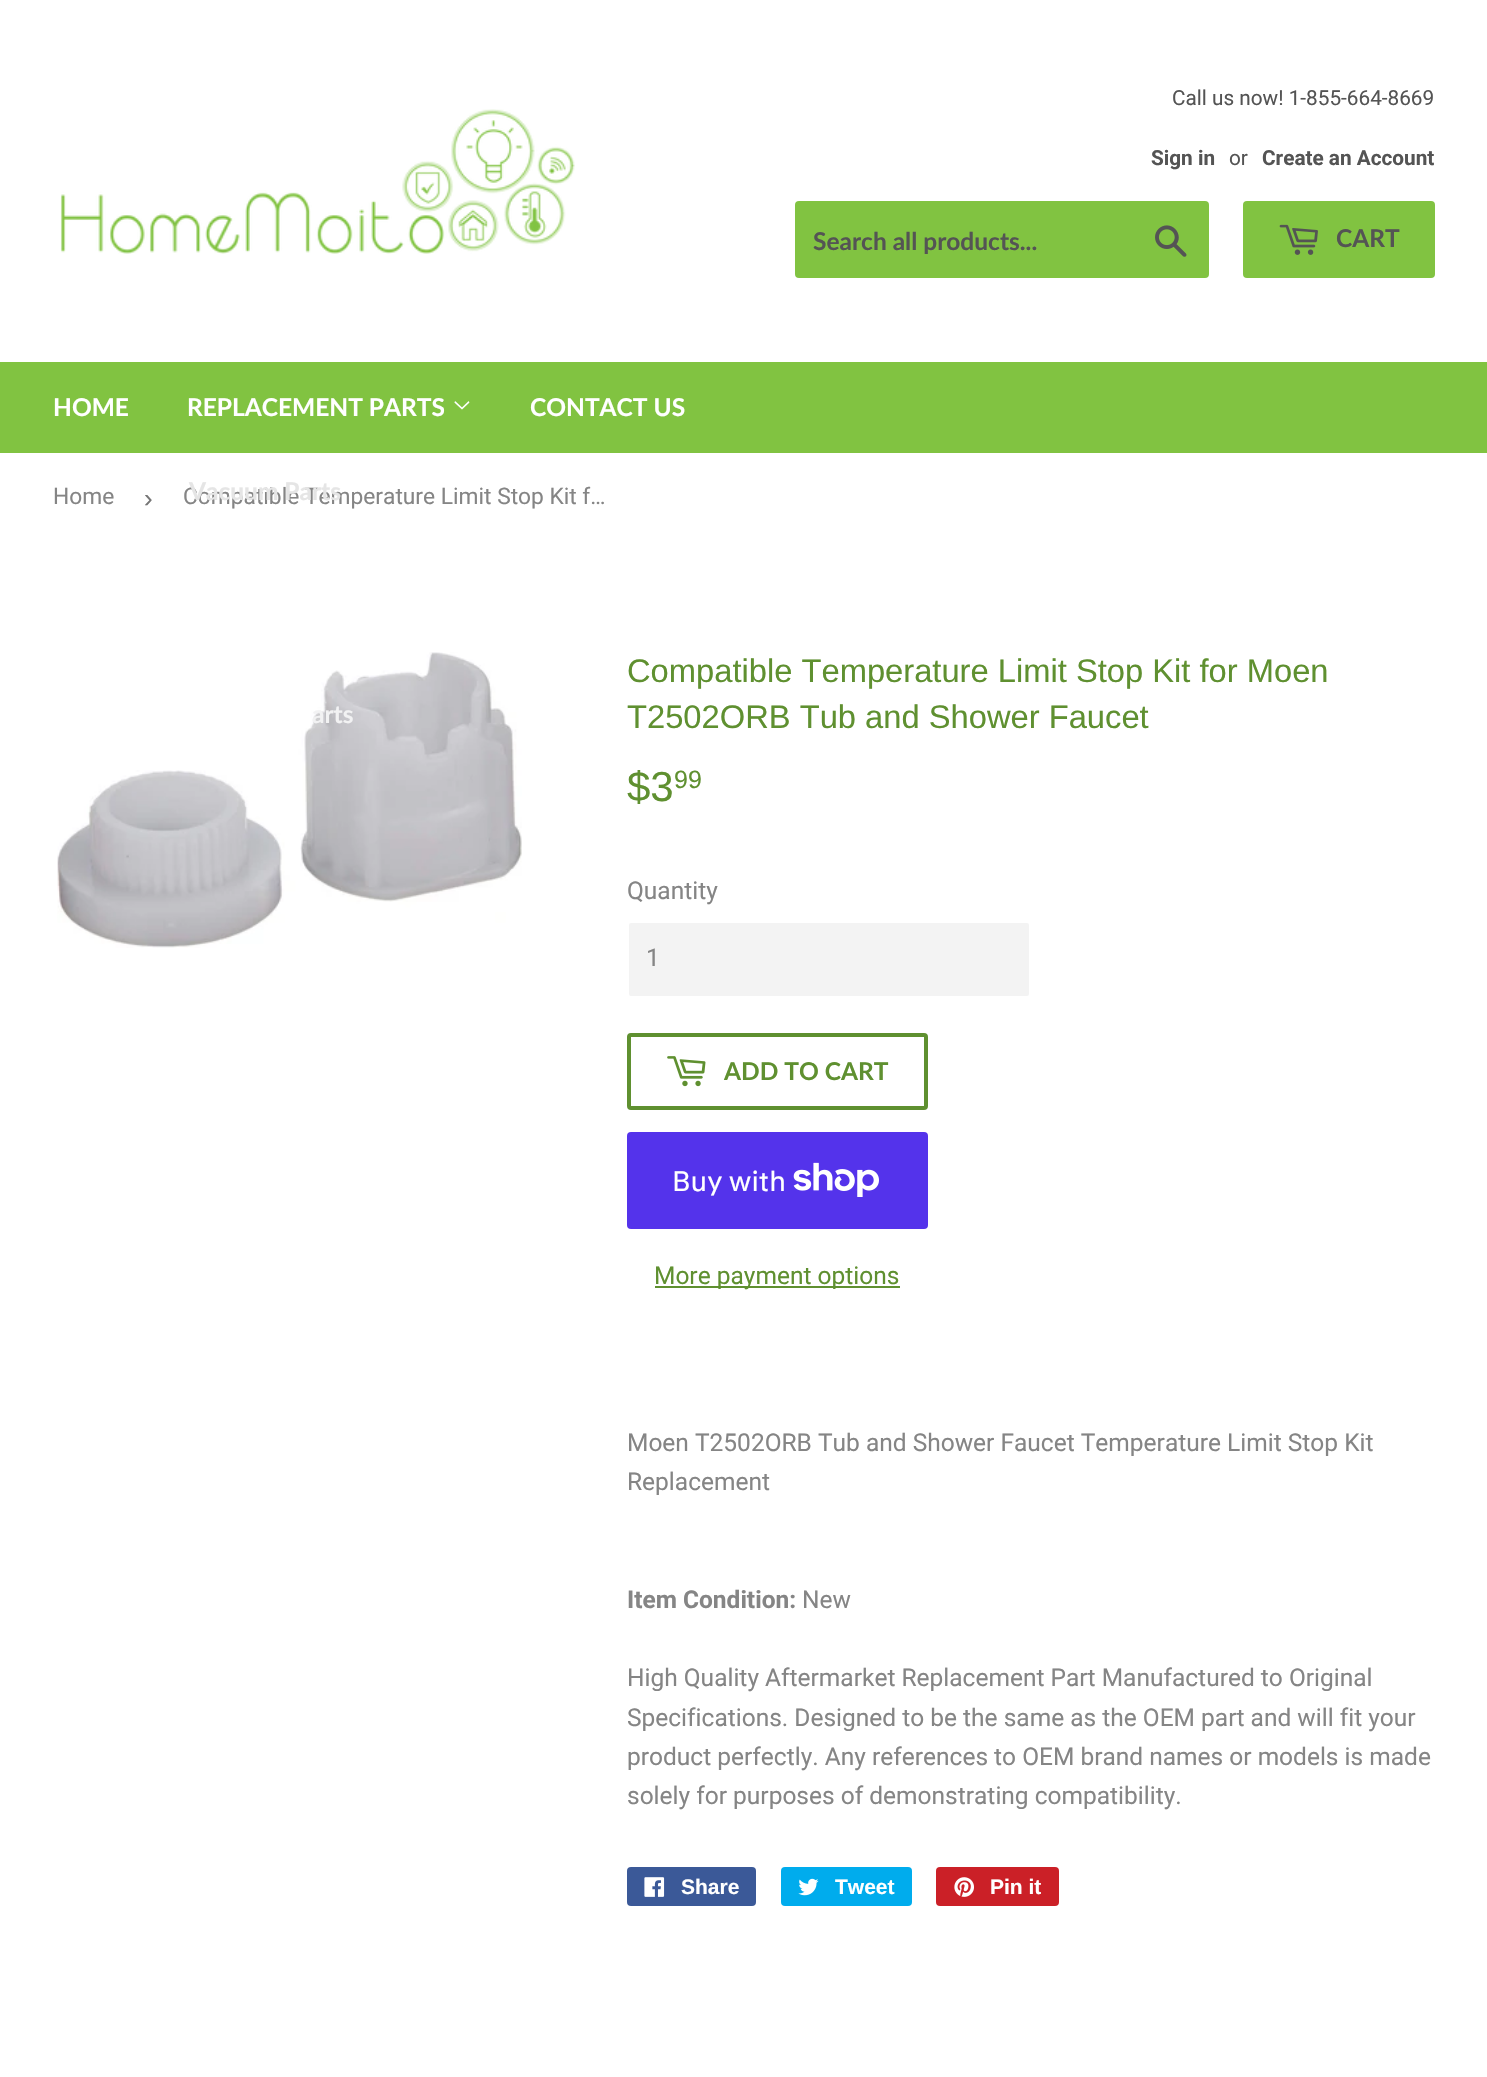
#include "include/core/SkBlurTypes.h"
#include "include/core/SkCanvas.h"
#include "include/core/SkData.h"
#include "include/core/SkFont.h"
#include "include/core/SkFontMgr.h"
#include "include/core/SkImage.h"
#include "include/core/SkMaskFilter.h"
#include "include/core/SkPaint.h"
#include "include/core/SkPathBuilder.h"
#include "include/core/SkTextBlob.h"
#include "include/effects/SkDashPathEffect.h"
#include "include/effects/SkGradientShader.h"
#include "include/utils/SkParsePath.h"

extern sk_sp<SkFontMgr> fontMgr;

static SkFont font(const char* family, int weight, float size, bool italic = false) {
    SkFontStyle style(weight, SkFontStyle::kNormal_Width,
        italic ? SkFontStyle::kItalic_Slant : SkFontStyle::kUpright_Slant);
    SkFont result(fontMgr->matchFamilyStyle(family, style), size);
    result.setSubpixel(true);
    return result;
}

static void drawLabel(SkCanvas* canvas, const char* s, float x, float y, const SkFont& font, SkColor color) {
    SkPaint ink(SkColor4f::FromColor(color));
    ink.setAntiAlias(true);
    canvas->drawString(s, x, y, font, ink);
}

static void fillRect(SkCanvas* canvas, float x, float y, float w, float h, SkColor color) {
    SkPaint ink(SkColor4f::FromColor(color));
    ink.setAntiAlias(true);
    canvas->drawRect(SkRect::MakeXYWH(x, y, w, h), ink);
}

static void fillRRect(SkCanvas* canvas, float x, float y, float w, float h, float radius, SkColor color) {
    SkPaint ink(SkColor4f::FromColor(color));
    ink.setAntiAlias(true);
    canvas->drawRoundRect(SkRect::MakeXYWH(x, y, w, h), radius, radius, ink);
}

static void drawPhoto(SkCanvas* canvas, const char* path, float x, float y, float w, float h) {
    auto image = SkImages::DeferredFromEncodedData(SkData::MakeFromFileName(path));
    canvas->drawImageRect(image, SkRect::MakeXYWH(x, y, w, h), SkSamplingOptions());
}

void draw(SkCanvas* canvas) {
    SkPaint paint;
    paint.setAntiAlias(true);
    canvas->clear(0xFFFFFFFF);
    drawPhoto(canvas, "assets/img1.png", 60, 109, 515, 145);
    SkFont font1 = font("Roboto", 400, 20.75f);
    drawLabel(canvas, "Call us now! 1-855-664-8669", 1172, 105, font1, 0xFF545454);
    SkFont font2 = font("Roboto", 700, 20.75f);
    drawLabel(canvas, "Sign in", 1151, 165, font2, 0xFF545454);
    drawLabel(canvas, "or", 1229, 165, font1, 0xFF545454);
    drawLabel(canvas, "Create an Account", 1262, 165, font2, 0xFF545454);
    fillRRect(canvas, 795, 201, 414, 77, 4, 0xFF81C341);
    SkFont font3 = font("Lato", 700, 24.5f);
    drawLabel(canvas, "Search all products...", 813, 250, font3, 0xFF545454);
    drawPhoto(canvas, "assets/img2.png", 1155, 225, 32, 32);
    fillRRect(canvas, 1243, 201, 192, 77, 4, 0xFF81C341);
    drawPhoto(canvas, "assets/img3.png", 1279, 224, 39, 31);
    drawLabel(canvas, "CART", 1336, 247, font3, 0xFF545454);
    fillRect(canvas, 0, 362, 1487, 91, 0xFF81C341);
    drawLabel(canvas, "HOME", 53, 416, font3, 0xFFFFFFFF);
    drawLabel(canvas, "REPLACEMENT PARTS", 187, 416, font3, 0xFFFFFFFF);
    drawPhoto(canvas, "assets/img4.png", 454, 401, 16, 9);
    SkFont font4 = font("Roboto", 400, 22.75f);
    drawLabel(canvas, "Compatible Temperature Limit Stop Kit f…", 183, 504, font4, 0xFF858585);
    drawLabel(canvas, "Vacuum Parts", 189, 500, font3, 0xFFE5E5E5);
    drawPhoto(canvas, "assets/img5.png", 57, 652, 465, 296);
    drawLabel(canvas, "arts", 312, 723, font3, 0xFFF2F2F3);
    drawLabel(canvas, "CONTACT US", 530, 416, font3, 0xFFFFFFFF);
    drawLabel(canvas, "Home", 53, 504, font4, 0xFF858585);
    SkFont font5 = font("Liberation Sans", 400, 26);
    drawLabel(canvas, "›", 144, 507, font5, 0xFF767676);
    SkFont font6 = font("Arimo", 400, 32.7f);
    drawLabel(canvas, "Compatible Temperature Limit Stop Kit for Moen", 627, 682, font6, 0xFF5F9030);
    drawLabel(canvas, "T2502ORB Tub and Shower Faucet", 627, 728, font6, 0xFF5F9030);
    SkFont font7 = font("Arimo", 400, 42);
    drawLabel(canvas, "$3", 627, 801, font7, 0xFF5F9030);
    SkFont font8 = font("Arimo", 400, 25);
    drawLabel(canvas, "99", 674, 788, font8, 0xFF5F9030);
    SkFont font9 = font("Roboto", 400, 24.5f);
    drawLabel(canvas, "Quantity", 627, 899, font9, 0xFF858585);
    paint.setColor(0xFFF3F3F3);
    canvas->drawRoundRect(SkRect::MakeXYWH(628, 922, 402, 75), 3, 3, paint);
    paint.setStroke(true);
    paint.setStrokeWidth(2);
    paint.setColor(0xFFFFFFFF);
    canvas->drawRoundRect(SkRect::MakeXYWH(628, 922, 402, 75), 3, 3, paint);
    drawLabel(canvas, "1", 646, 966, font9, 0xFF858585);
    paint.setStrokeWidth(4);
    paint.setColor(0xFF5F9030);
    canvas->drawRoundRect(SkRect::MakeXYWH(629, 1035, 297, 73), 2, 2, paint);
    drawPhoto(canvas, "assets/img6.png", 667, 1056, 39, 31);
    drawLabel(canvas, "ADD TO CART", 724, 1080, font3, 0xFF5F9030);
    fillRRect(canvas, 627, 1132, 301, 97, 4, 0xFF5433EB);
    SkFont font10 = font("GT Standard", 400, 28);
    drawLabel(canvas, "Buy with", 672, 1191, font10, 0xFFFFFFFF);
    drawPhoto(canvas, "assets/img7.png", 793, 1162, 86, 35);
    fillRect(canvas, 655, 1286, 245, 2, 0xFF5F9030);
    drawLabel(canvas, "More payment options", 654, 1284, font9, 0xFF5F9030);
    drawLabel(canvas, "Moen T2502ORB Tub and Shower Faucet Temperature Limit Stop Kit", 627, 1451, font9, 0xFF858585);
    drawLabel(canvas, "Replacement", 627, 1490, font9, 0xFF858585);
    SkFont font11 = font("Roboto", 700, 24.5f);
    drawLabel(canvas, "Item Condition:", 627, 1608, font11, 0xFF858585);
    drawLabel(canvas, "New", 802, 1608, font9, 0xFF858585);
    drawLabel(canvas, "High Quality Aftermarket Replacement Part Manufactured to Original", 627, 1686, font9, 0xFF858585);
    drawLabel(canvas, "Specifications. Designed to be the same as the OEM part and will fit your", 627, 1726, font9, 0xFF858585);
    drawLabel(canvas, "product perfectly. Any references to OEM brand names or models is made", 627, 1765, font9, 0xFF858585);
    drawLabel(canvas, "solely for purposes of demonstrating compatibility.", 627, 1804, font9, 0xFF858585);
    fillRRect(canvas, 627, 1867, 129, 39, 4, 0xFF3B5998);
    drawPhoto(canvas, "assets/img8.png", 644, 1877, 21, 20);
    SkFont font12 = font("Liberation Sans", 700, 21);
    drawLabel(canvas, "Share", 681, 1894, font12, 0xFFFFFFFF);
    fillRRect(canvas, 781, 1867, 131, 39, 4, 0xFF00ACED);
    drawPhoto(canvas, "assets/img9.png", 798, 1878, 21, 18);
    drawLabel(canvas, "Tweet", 835, 1894, font12, 0xFFFFFFFF);
    fillRRect(canvas, 936, 1867, 123, 39, 4, 0xFFCB2027);
    drawPhoto(canvas, "assets/img10.png", 954, 1877, 20, 20);
    drawLabel(canvas, "Pin it", 990, 1894, font12, 0xFFFFFFFF);
}
